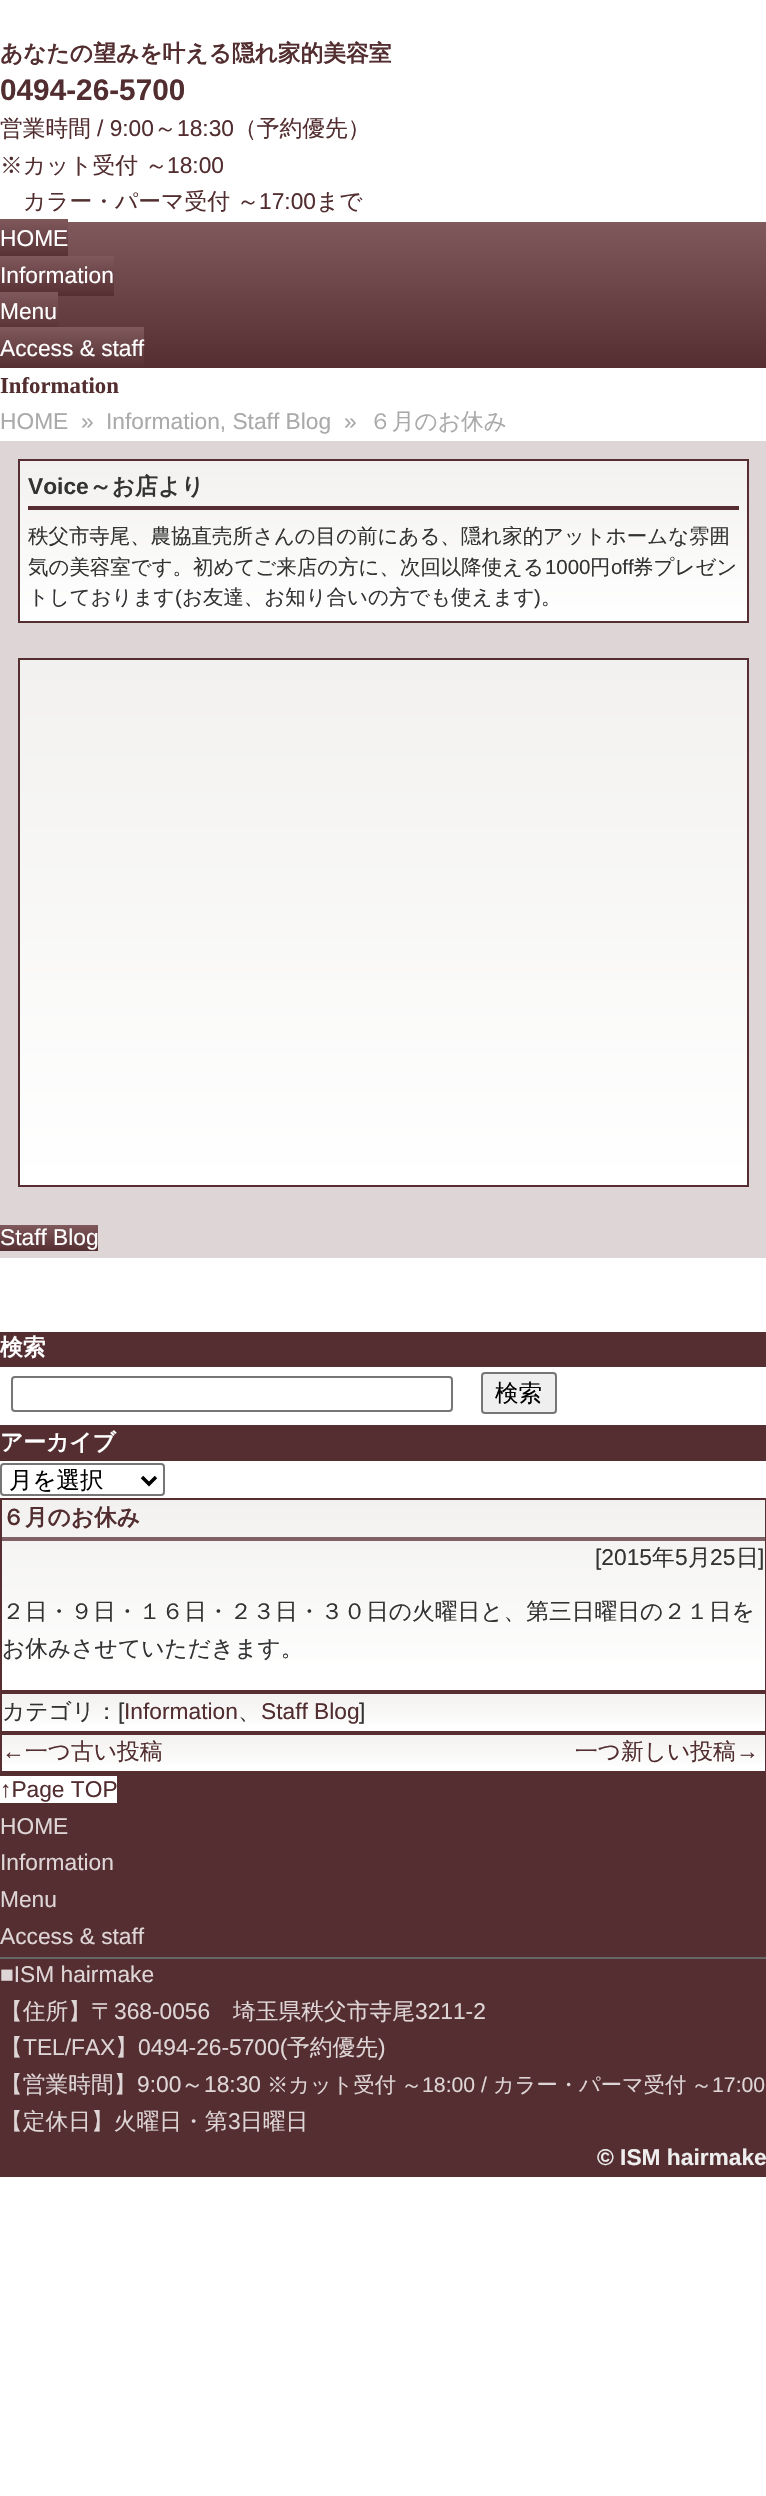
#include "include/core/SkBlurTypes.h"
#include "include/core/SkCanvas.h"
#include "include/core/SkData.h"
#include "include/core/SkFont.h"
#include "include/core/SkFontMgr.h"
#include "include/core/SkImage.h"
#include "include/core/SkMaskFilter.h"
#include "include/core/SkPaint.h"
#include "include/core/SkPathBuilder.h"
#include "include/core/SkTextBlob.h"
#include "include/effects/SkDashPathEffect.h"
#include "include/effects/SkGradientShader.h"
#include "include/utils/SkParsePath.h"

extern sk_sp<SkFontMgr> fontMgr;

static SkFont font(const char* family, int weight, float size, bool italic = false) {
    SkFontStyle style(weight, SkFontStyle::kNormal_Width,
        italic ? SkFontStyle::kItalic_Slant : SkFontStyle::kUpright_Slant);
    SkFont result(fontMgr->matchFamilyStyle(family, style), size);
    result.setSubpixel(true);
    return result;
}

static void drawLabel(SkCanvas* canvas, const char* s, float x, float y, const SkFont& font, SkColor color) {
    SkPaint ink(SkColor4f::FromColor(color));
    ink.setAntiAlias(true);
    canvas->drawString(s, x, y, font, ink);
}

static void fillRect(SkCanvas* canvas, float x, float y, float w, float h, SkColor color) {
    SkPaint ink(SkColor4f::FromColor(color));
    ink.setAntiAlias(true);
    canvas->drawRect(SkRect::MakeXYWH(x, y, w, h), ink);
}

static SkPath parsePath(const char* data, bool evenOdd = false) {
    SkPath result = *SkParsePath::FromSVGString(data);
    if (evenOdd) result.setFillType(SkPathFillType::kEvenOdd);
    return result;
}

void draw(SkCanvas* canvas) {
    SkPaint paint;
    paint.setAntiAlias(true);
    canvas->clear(0xFFFFFFFF);
    SkFont font1 = font("WenQuanYi Zen Hei", 700, 22.75f);
    drawLabel(canvas, "あなたの望みを叶える隠れ家的美容室", 0, 61, font1, 0xFF522E30);
    SkFont font2 = font("Liberation Sans", 700, 29.75f);
    drawLabel(canvas, "0494-26-5700", 0, 100, font2, 0xFF522E30);
    SkFont font3 = font("WenQuanYi Zen Hei", 500, 22.75f);
    drawLabel(canvas, "営業時間", 0, 136, font3, 0xFF522E30);
    SkFont font4 = font("Liberation Sans", 400, 22.75f);
    drawLabel(canvas, "/ 9:00", 97, 136, font4, 0xFF522E30);
    drawLabel(canvas, "～", 154, 136, font3, 0xFF522E30);
    drawLabel(canvas, "18:30", 177, 136, font4, 0xFF522E30);
    drawLabel(canvas, "（予約優先）", 234, 136, font3, 0xFF522E30);
    drawLabel(canvas, "※カット受付 ～", 0, 173, font3, 0xFF522E30);
    drawLabel(canvas, "18:00", 167, 173, font4, 0xFF522E30);
    drawLabel(canvas, "カラー・パーマ受付 ～", 23, 209, font3, 0xFF522E30);
    drawLabel(canvas, "17:00", 259, 209, font4, 0xFF522E30);
    drawLabel(canvas, "まで", 316, 209, font3, 0xFF522E30);
    {
        const SkColor colors[] = {0xFF80595C, 0xFF552E31};
        const float stops[] = {0, 1};
        const SkPoint ends[] = {{383, 222}, {383, 368}};
        paint.setShader(SkGradientShader::MakeLinear(ends, colors, stops, 2, SkTileMode::kClamp));
        paint.setAlpha(255);
    }
    canvas->drawRect(SkRect::MakeXYWH(58, 222, 708, 146), paint);
    {
        const SkColor colors[] = {0xFF80595C, 0xFF552E31};
        const float stops[] = {0, 1};
        const SkPoint ends[] = {{34, 219}, {34, 259}};
        paint.setShader(SkGradientShader::MakeLinear(ends, colors, stops, 2, SkTileMode::kClamp));
        paint.setAlpha(255);
    }
    canvas->drawRect(SkRect::MakeXYWH(0, 219, 68, 37), paint);
    drawLabel(canvas, "HOME", 0, 246, font4, 0xFFFFFFFF);
    {
        const SkColor colors[] = {0xFF80595C, 0xFF552E31};
        const float stops[] = {0, 1};
        const SkPoint ends[] = {{57, 256}, {57, 296}};
        paint.setShader(SkGradientShader::MakeLinear(ends, colors, stops, 2, SkTileMode::kClamp));
        paint.setAlpha(255);
    }
    canvas->drawRect(SkRect::MakeXYWH(0, 256, 114, 40), paint);
    drawLabel(canvas, "Information", 0, 283, font4, 0xFFFFFFFF);
    {
        const SkColor colors[] = {0xFF80595C, 0xFF552E31};
        const float stops[] = {0, 1};
        const SkPoint ends[] = {{29, 292}, {29, 333}};
        paint.setShader(SkGradientShader::MakeLinear(ends, colors, stops, 2, SkTileMode::kClamp));
        paint.setAlpha(255);
    }
    canvas->drawRect(SkRect::MakeXYWH(0, 292, 58, 35), paint);
    drawLabel(canvas, "Menu", 0, 319, font4, 0xFFFFFFFF);
    {
        const SkColor colors[] = {0xFF80595C, 0xFF552E31};
        const float stops[] = {0, 1};
        const SkPoint ends[] = {{72, 327}, {72, 368}};
        paint.setShader(SkGradientShader::MakeLinear(ends, colors, stops, 2, SkTileMode::kClamp));
        paint.setAlpha(255);
    }
    canvas->drawRect(SkRect::MakeXYWH(0, 327, 144, 41), paint);
    drawLabel(canvas, "Access & staff", 0, 356, font4, 0xFFFFFFFF);
    SkFont font5 = font("Liberation Serif", 700, 22.75f);
    drawLabel(canvas, "Information", 0, 393, font5, 0xFF522E30);
    drawLabel(canvas, "HOME", 0, 429, font4, 0xFFAAAAAA);
    drawLabel(canvas, "»", 81, 429, font4, 0xFFAAAAAA);
    drawLabel(canvas, "Information, Staff Blog", 106, 429, font4, 0xFFAAAAAA);
    drawLabel(canvas, "»", 344, 429, font4, 0xFFAAAAAA);
    drawLabel(canvas, "６月のお休み", 369, 429, font3, 0xFFAAAAAA);
    fillRect(canvas, 0, 441, 766, 817, 0xFFDED5D6);
    {
        const SkColor colors[] = {0xFFF2F1EF, 0xFFFFFFFF};
        const float stops[] = {0, 1};
        const SkPoint ends[] = {{383, 460}, {383, 621}};
        paint.setShader(SkGradientShader::MakeLinear(ends, colors, stops, 2, SkTileMode::kClamp));
        paint.setAlpha(255);
    }
    canvas->drawRect(SkRect::MakeXYWH(20, 461, 727, 160), paint);
    paint.setStroke(true);
    paint.setStrokeWidth(2);
    paint.setShader(nullptr);
    paint.setColor(0xFF562D31);
    canvas->drawRect(SkRect::MakeXYWH(19, 460, 729, 162), paint);
    fillRect(canvas, 28, 506, 711, 4, 0xFF562D31);
    SkFont font6 = font("Liberation Sans", 700, 22.75f);
    drawLabel(canvas, "Voice", 28, 494, font6, 0xFF333333);
    drawLabel(canvas, "～お店より", 89, 494, font1, 0xFF333333);
    SkFont font7 = font("WenQuanYi Zen Hei", 500, 20.45f);
    drawLabel(canvas, "秩父市寺尾、農協直売所さんの目の前にある、隠れ家的アットホームな雰囲", 28, 543, font7, 0xFF333333);
    drawLabel(canvas, "気の美容室です。初めてご来店の方に、次回以降使える", 28, 574, font7, 0xFF333333);
    SkFont font8 = font("Liberation Sans", 400, 20.45f);
    drawLabel(canvas, "1000", 545, 574, font8, 0xFF333333);
    drawLabel(canvas, "円", 590, 574, font7, 0xFF333333);
    drawLabel(canvas, "off", 611, 574, font8, 0xFF333333);
    drawLabel(canvas, "券プレゼン", 633, 574, font7, 0xFF333333);
    drawLabel(canvas, "トしております", 28, 604, font7, 0xFF333333);
    drawLabel(canvas, "(", 175, 604, font8, 0xFF333333);
    drawLabel(canvas, "お友達、お知り合いの方でも使えます", 182, 604, font7, 0xFF333333);
    drawLabel(canvas, ")", 534, 604, font8, 0xFF333333);
    drawLabel(canvas, "。", 541, 604, font7, 0xFF333333);
    paint.setStroke(false);
    {
        const SkColor colors[] = {0xFFF2F1EF, 0xFFFFFFFF};
        const float stops[] = {0, 1};
        const SkPoint ends[] = {{383, 660}, {383, 1185}};
        paint.setShader(SkGradientShader::MakeLinear(ends, colors, stops, 2, SkTileMode::kClamp));
        paint.setAlpha(255);
    }
    canvas->drawRect(SkRect::MakeXYWH(20, 660, 727, 525), paint);
    paint.setStroke(true);
    paint.setShader(nullptr);
    paint.setColor(0xFF562D31);
    canvas->drawRect(SkRect::MakeXYWH(19, 659, 729, 527), paint);
    paint.setStroke(false);
    {
        const SkColor colors[] = {0xFF80595C, 0xFF552E31};
        const float stops[] = {0, 1};
        const SkPoint ends[] = {{49, 1225}, {49, 1251}};
        paint.setShader(SkGradientShader::MakeLinear(ends, colors, stops, 2, SkTileMode::kClamp));
        paint.setAlpha(255);
    }
    canvas->drawRect(SkRect::MakeXYWH(0, 1225, 98, 26), paint);
    drawLabel(canvas, "Staff Blog", 0, 1245, font4, 0xFFFFFFFF);
    fillRect(canvas, 0, 1332, 766, 35, 0xFF552E31);
    drawLabel(canvas, "検索", 0, 1355, font1, 0xFFFFFFFF);
    paint.setStroke(true);
    paint.setShader(nullptr);
    paint.setColor(0xFF767676);
    canvas->drawRoundRect(SkRect::MakeXYWH(12, 1377, 440, 34), 3, 3, paint);
    paint.setStroke(false);
    paint.setColor(0xFFEFEFEF);
    canvas->drawRoundRect(SkRect::MakeXYWH(482, 1373, 74, 40), 3, 3, paint);
    paint.setStroke(true);
    paint.setColor(0xFF767676);
    canvas->drawRoundRect(SkRect::MakeXYWH(482, 1373, 74, 40), 3, 3, paint);
    SkFont font9 = font("WenQuanYi Zen Hei", 500, 23.5f);
    drawLabel(canvas, "検索", 495, 1401, font9, 0xFF000000);
    fillRect(canvas, 0, 1425, 766, 36, 0xFF552E31);
    drawLabel(canvas, "アーカイブ", 0, 1450, font1, 0xFFFFFFFF);
    canvas->drawRoundRect(SkRect::MakeXYWH(1, 1464, 163, 31), 3, 3, paint);
    paint.setStrokeWidth(3.5f);
    paint.setColor(0xFF000000);
    canvas->drawPath(parsePath("M142 1477L149 1484L156 1477"), paint);
    drawLabel(canvas, "月を選択", 9, 1488, font9, 0xFF000000);
    paint.setStroke(false);
    {
        const SkColor colors[] = {0xFFF2F1EF, 0xFFFFFFFF};
        const float stops[] = {0, 1};
        const SkPoint ends[] = {{383, 1500}, {383, 1691}};
        paint.setShader(SkGradientShader::MakeLinear(ends, colors, stops, 2, SkTileMode::kClamp));
        paint.setAlpha(255);
    }
    canvas->drawRect(SkRect::MakeXYWH(2, 1500, 763, 161), paint);
    paint.setStroke(true);
    paint.setStrokeWidth(2);
    paint.setShader(nullptr);
    paint.setColor(0xFF562D31);
    canvas->drawRect(SkRect::MakeXYWH(1, 1499, 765, 192), paint);
    fillRect(canvas, 2, 1537, 763, 4, 0xFF806166);
    drawLabel(canvas, "６月のお休み", 2, 1525, font1, 0xFF522E30);
    drawLabel(canvas, "[2015", 595, 1565, font4, 0xFF333333);
    drawLabel(canvas, "年", 652, 1565, font3, 0xFF333333);
    drawLabel(canvas, "5", 675, 1565, font4, 0xFF333333);
    drawLabel(canvas, "月", 688, 1565, font3, 0xFF333333);
    drawLabel(canvas, "25", 710, 1565, font4, 0xFF333333);
    drawLabel(canvas, "日", 736, 1565, font3, 0xFF333333);
    drawLabel(canvas, "]", 758, 1565, font4, 0xFF333333);
    drawLabel(canvas, "２日・９日・１６日・２３日・３０日の火曜日と、第三日曜日の２１日を", 2, 1619, font3, 0xFF333333);
    drawLabel(canvas, "お休みさせていただきます。", 2, 1656, font3, 0xFF333333);
    paint.setStroke(false);
    {
        const SkColor colors[] = {0xFFF2F1EF, 0xFFFFFFFF};
        const float stops[] = {0, 1};
        const SkPoint ends[] = {{383, 1694}, {383, 1731}};
        paint.setShader(SkGradientShader::MakeLinear(ends, colors, stops, 2, SkTileMode::kClamp));
        paint.setAlpha(255);
    }
    canvas->drawRect(SkRect::MakeXYWH(2, 1694, 763, 31), paint);
    paint.setStroke(true);
    paint.setShader(nullptr);
    paint.setColor(0xFF562D31);
    canvas->drawRect(SkRect::MakeXYWH(1, 1693, 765, 39), paint);
    drawLabel(canvas, "カテゴリ：", 2, 1719, font3, 0xFF333333);
    drawLabel(canvas, "[", 118, 1719, font4, 0xFF333333);
    drawLabel(canvas, "Information", 124, 1719, font4, 0xFF522E30);
    drawLabel(canvas, "、", 238, 1719, font3, 0xFF333333);
    drawLabel(canvas, "Staff Blog", 261, 1719, font4, 0xFF522E30);
    drawLabel(canvas, "]", 359, 1719, font4, 0xFF333333);
    paint.setStroke(false);
    {
        const SkColor colors[] = {0xFFF2F1EF, 0xFFFFFFFF};
        const float stops[] = {0, 1};
        const SkPoint ends[] = {{383, 1734}, {383, 1771}};
        paint.setShader(SkGradientShader::MakeLinear(ends, colors, stops, 2, SkTileMode::kClamp));
        paint.setAlpha(255);
    }
    canvas->drawRect(SkRect::MakeXYWH(2, 1735, 763, 30), paint);
    paint.setStroke(true);
    paint.setShader(nullptr);
    paint.setColor(0xFF562D31);
    canvas->drawRect(SkRect::MakeXYWH(1, 1734, 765, 38), paint);
    drawLabel(canvas, "←", 2, 1759, font4, 0xFF522E30);
    drawLabel(canvas, "一つ古い投稿", 25, 1759, font3, 0xFF522E30);
    drawLabel(canvas, "一つ新しい投稿", 575, 1759, font3, 0xFF522E30);
    drawLabel(canvas, "→", 736, 1759, font4, 0xFF522E30);
    fillRect(canvas, 0, 1773, 766, 404, 0xFF552E31);
    fillRect(canvas, 0, 1776, 117, 27, 0xFFFFFFFF);
    drawLabel(canvas, "↑Page TOP", 0, 1797, font4, 0xFF522E30);
    fillRect(canvas, 0, 1957, 766, 2, 0xFF666666);
    drawLabel(canvas, "HOME", 0, 1834, font4, 0xFFDED5D6);
    drawLabel(canvas, "Information", 0, 1870, font4, 0xFFDED5D6);
    drawLabel(canvas, "Menu", 0, 1907, font4, 0xFFDED5D6);
    drawLabel(canvas, "Access & staff", 0, 1944, font4, 0xFFDED5D6);
    drawLabel(canvas, "■ISM hairmake", 0, 1982, font4, 0xFFDED5D6);
    drawLabel(canvas, "【住所】〒", 0, 2019, font3, 0xFFDED5D6);
    drawLabel(canvas, "368-0056", 114, 2019, font4, 0xFFDED5D6);
    drawLabel(canvas, "埼玉県秩父市寺尾", 233, 2019, font3, 0xFFDED5D6);
    drawLabel(canvas, "3211-2", 415, 2019, font4, 0xFFDED5D6);
    drawLabel(canvas, "【", 0, 2055, font3, 0xFFDED5D6);
    drawLabel(canvas, "TEL/FAX", 23, 2055, font4, 0xFFDED5D6);
    drawLabel(canvas, "】", 115, 2055, font3, 0xFFDED5D6);
    drawLabel(canvas, "0494-26-5700(", 138, 2055, font4, 0xFFDED5D6);
    drawLabel(canvas, "予約優先", 287, 2055, font3, 0xFFDED5D6);
    drawLabel(canvas, ")", 378, 2055, font4, 0xFFDED5D6);
    drawLabel(canvas, "【営業時間】", 0, 2092, font3, 0xFFDED5D6);
    drawLabel(canvas, "9:00", 137, 2092, font4, 0xFFDED5D6);
    drawLabel(canvas, "～", 181, 2092, font3, 0xFFDED5D6);
    drawLabel(canvas, "18:30", 204, 2092, font4, 0xFFDED5D6);
    SkFont font10 = font("WenQuanYi Zen Hei", 500, 21.25f);
    drawLabel(canvas, "※カット受付", 267, 2092, font10, 0xFFDED5D6);
    drawLabel(canvas, "～", 401, 2092, font10, 0xFFDED5D6);
    SkFont font11 = font("Liberation Sans", 400, 21.25f);
    drawLabel(canvas, "18:00 /", 422, 2092, font11, 0xFFDED5D6);
    drawLabel(canvas, "カラー・パーマ受付", 493, 2092, font10, 0xFFDED5D6);
    drawLabel(canvas, "～", 691, 2092, font10, 0xFFDED5D6);
    drawLabel(canvas, "17:00", 712, 2092, font11, 0xFFDED5D6);
    drawLabel(canvas, "【定休日】火曜日・第", 0, 2129, font3, 0xFFDED5D6);
    drawLabel(canvas, "3", 228, 2129, font4, 0xFFDED5D6);
    drawLabel(canvas, "日曜日", 240, 2129, font3, 0xFFDED5D6);
    drawLabel(canvas, "© ISM hairmake", 597, 2165, font6, 0xFFEEEEEE);
}
